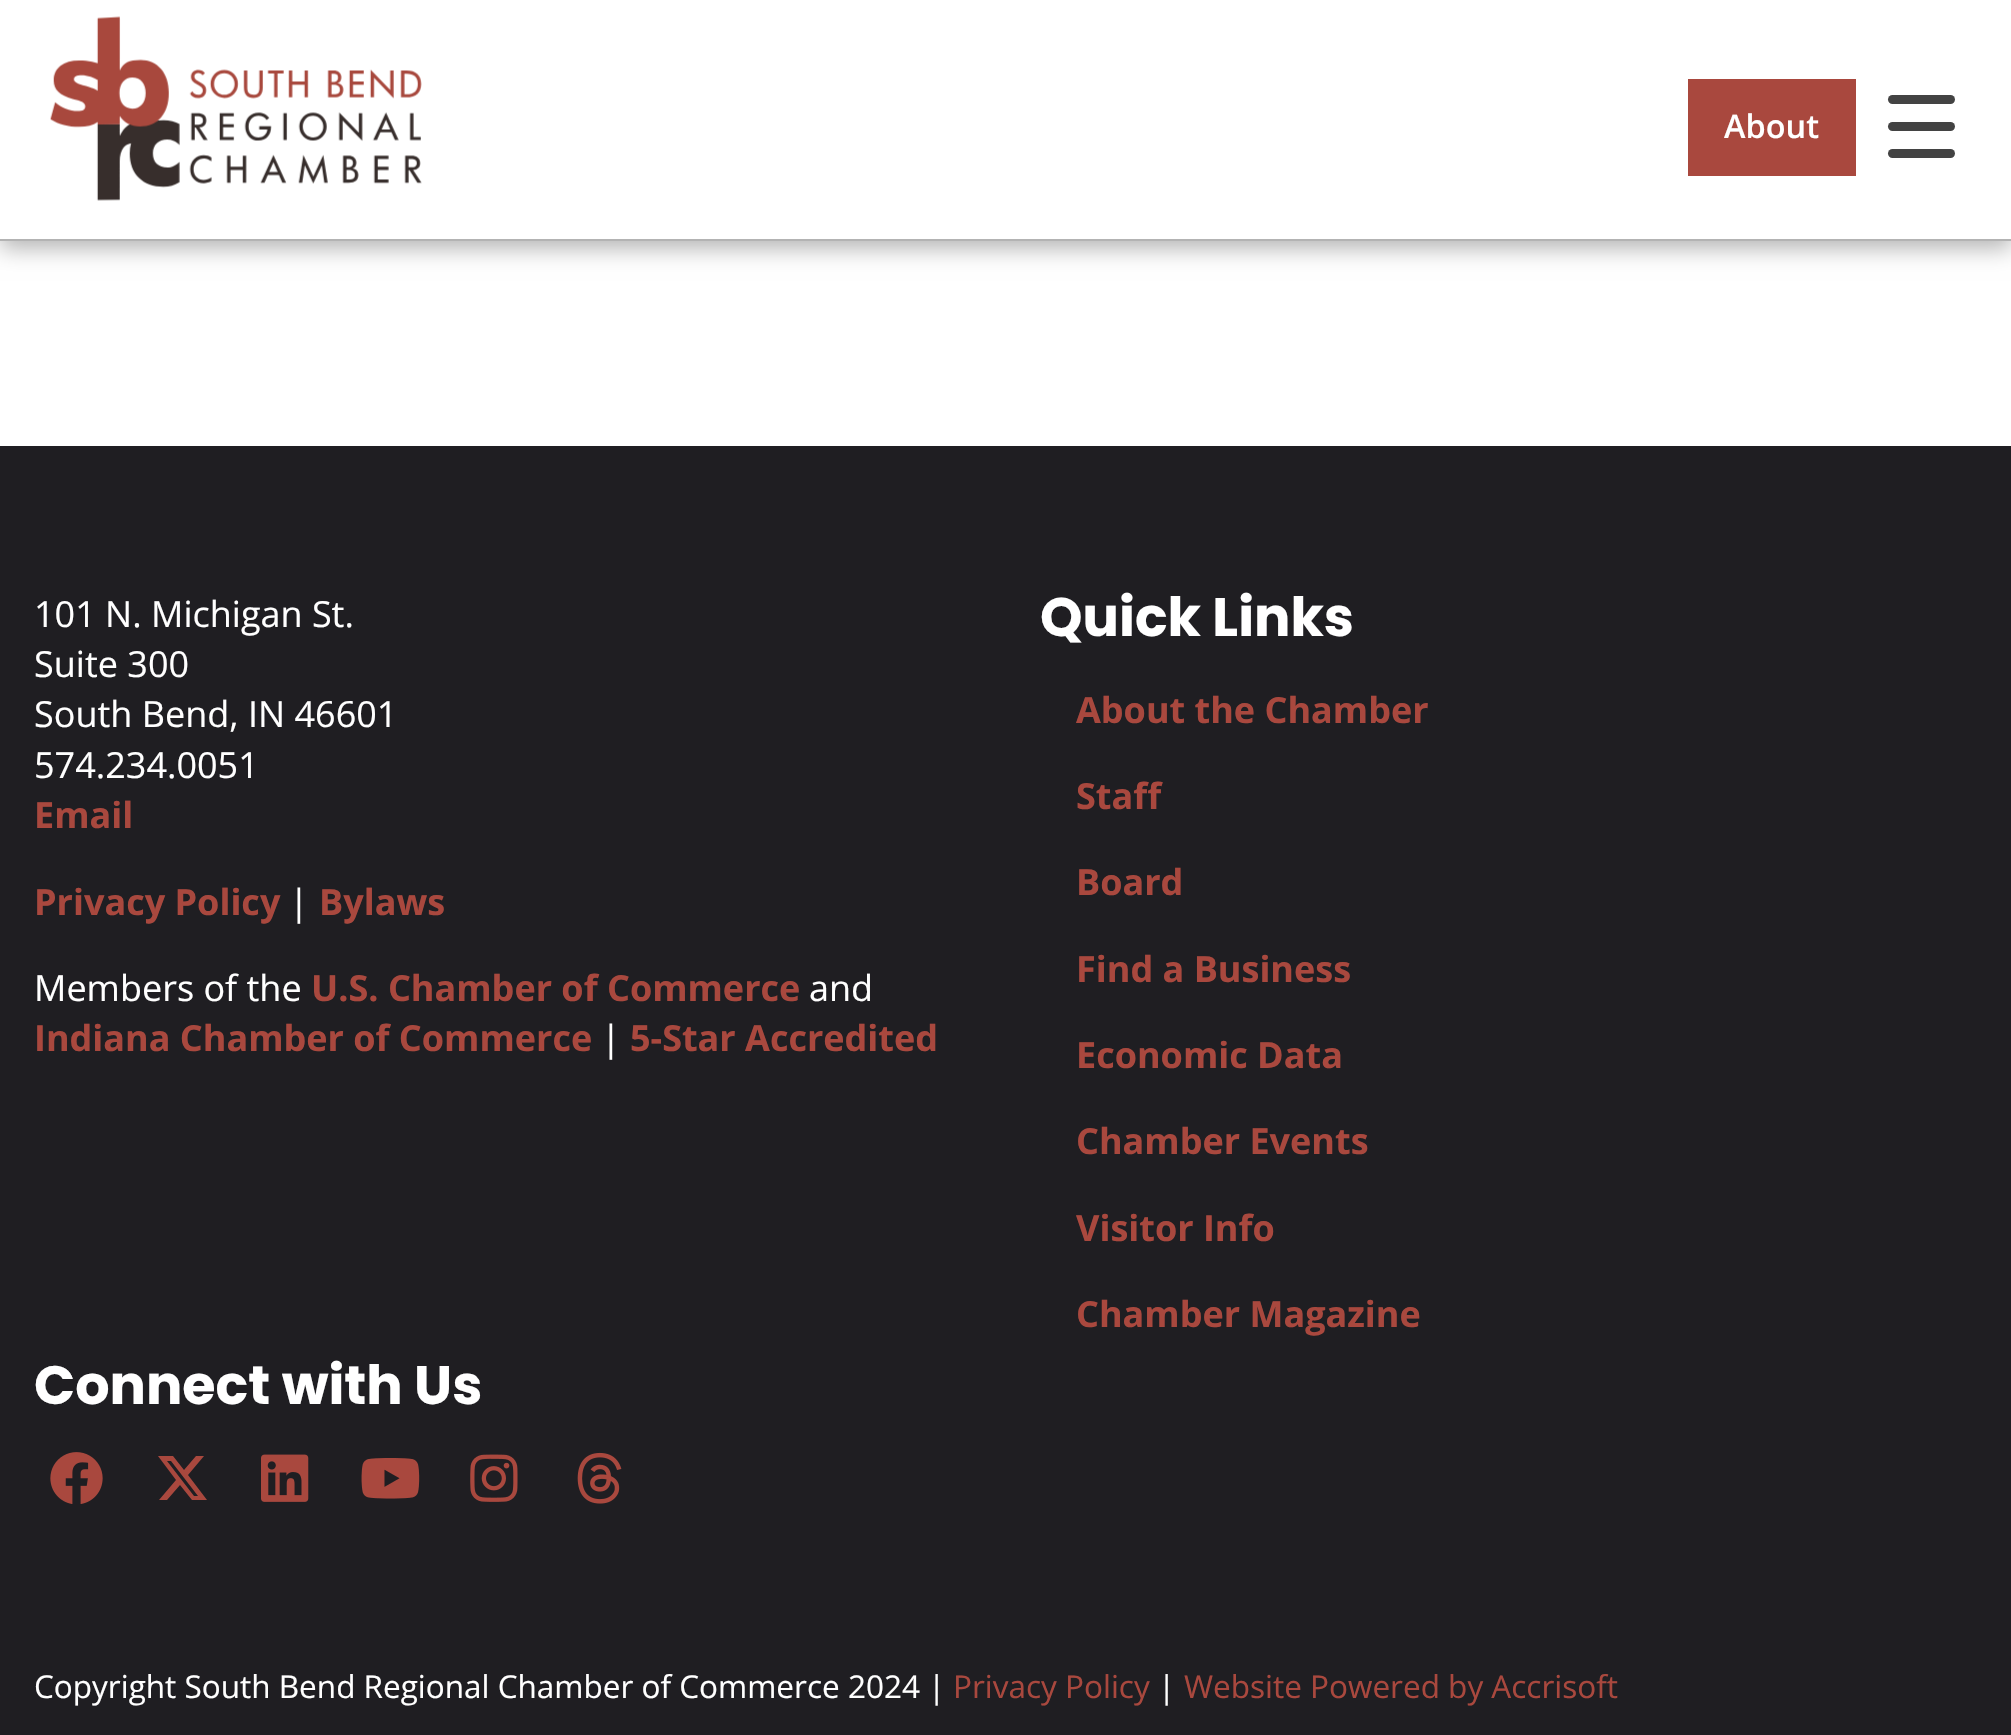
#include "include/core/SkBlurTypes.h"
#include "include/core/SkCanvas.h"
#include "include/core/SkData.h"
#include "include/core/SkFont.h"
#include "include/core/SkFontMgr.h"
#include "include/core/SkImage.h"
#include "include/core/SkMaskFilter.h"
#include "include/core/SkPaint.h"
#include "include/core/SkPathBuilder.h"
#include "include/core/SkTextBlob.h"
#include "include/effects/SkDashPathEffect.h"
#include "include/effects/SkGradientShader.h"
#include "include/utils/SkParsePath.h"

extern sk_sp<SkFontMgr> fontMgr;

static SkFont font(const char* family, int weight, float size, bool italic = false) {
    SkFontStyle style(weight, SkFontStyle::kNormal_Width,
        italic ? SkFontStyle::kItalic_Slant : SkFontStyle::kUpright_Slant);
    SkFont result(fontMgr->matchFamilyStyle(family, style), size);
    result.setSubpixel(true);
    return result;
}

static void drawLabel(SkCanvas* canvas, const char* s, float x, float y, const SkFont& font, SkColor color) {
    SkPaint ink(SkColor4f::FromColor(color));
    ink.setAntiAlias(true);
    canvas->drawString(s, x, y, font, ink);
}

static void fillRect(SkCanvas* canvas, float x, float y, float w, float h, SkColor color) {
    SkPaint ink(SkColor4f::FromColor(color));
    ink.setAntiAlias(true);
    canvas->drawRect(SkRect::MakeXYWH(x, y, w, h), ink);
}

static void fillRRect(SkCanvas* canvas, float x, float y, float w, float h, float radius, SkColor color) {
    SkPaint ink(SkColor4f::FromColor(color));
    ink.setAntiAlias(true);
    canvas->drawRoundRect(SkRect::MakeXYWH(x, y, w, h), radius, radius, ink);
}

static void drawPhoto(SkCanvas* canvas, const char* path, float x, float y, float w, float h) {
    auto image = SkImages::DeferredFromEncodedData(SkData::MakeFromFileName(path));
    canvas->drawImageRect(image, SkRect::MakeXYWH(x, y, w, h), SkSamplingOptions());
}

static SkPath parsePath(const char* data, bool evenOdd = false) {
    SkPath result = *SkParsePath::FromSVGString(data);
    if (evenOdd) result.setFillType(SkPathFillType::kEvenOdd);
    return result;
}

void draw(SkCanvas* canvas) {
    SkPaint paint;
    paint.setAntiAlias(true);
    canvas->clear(0xFFFFFFFF);
    paint.setColor(0x4D000000);
    paint.setMaskFilter(SkMaskFilter::MakeBlur(kNormal_SkBlurStyle, 11));
    canvas->drawRect(SkRect::MakeXYWH(0, 7, 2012, 241), paint);
    paint.setMaskFilter(nullptr);
    fillRect(canvas, 0, 0, 2011, 239, 0xFFFFFFFF);
    fillRect(canvas, 0, 239, 2011, 2, 0xFFB3B3B3);
    drawPhoto(canvas, "assets/img1.png", 50, 16, 372, 185);
    fillRect(canvas, 1688, 79, 168, 97, 0xFFA9483E);
    SkFont font1 = font("Open Sans", 600, 32.5f);
    drawLabel(canvas, "About", 1724, 138, font1, 0xFFFFFFFF);
    fillRRect(canvas, 1888, 122, 67, 9, 4.5f, 0xFF434343);
    fillRRect(canvas, 1888, 95, 67, 9, 4.5f, 0xFF434343);
    fillRRect(canvas, 1888, 149, 67, 9, 4.5f, 0xFF434343);
    fillRect(canvas, 0, 446, 2011, 1289, 0xFF1F1E22);
    SkFont font2 = font("Open Sans", 400, 36);
    drawLabel(canvas, "101 N. Michigan St.", 34, 627, font2, 0xFFFFFFFF);
    drawLabel(canvas, "Suite 300", 34, 677, font2, 0xFFFFFFFF);
    drawLabel(canvas, "South Bend, IN 46601", 34, 727, font2, 0xFFFFFFFF);
    drawLabel(canvas, "574.234.0051", 34, 778, font2, 0xFFFFFFFF);
    SkFont font3 = font("Open Sans", 700, 36);
    drawLabel(canvas, "Email", 34, 828, font3, 0xFFA9483E);
    drawLabel(canvas, "Privacy Policy", 34, 915, font3, 0xFFA9483E);
    drawLabel(canvas, "|", 289, 915, font2, 0xFFFFFFFF);
    drawLabel(canvas, "Bylaws", 319, 915, font3, 0xFFA9483E);
    drawLabel(canvas, "Members of the", 34, 1001, font2, 0xFFFFFFFF);
    drawLabel(canvas, "U.S. Chamber of Commerce", 311, 1001, font3, 0xFFA9483E);
    drawLabel(canvas, "and", 809, 1001, font2, 0xFFFFFFFF);
    drawLabel(canvas, "Indiana Chamber of Commerce", 34, 1051, font3, 0xFFA9483E);
    drawLabel(canvas, "|", 601, 1051, font2, 0xFFFFFFFF);
    drawLabel(canvas, "5-Star Accredited", 630, 1051, font3, 0xFFA9483E);
    SkFont font4 = font("Poppins", 700, 54);
    drawLabel(canvas, "Quick Links", 1040, 636, font4, 0xFFFFFFFF);
    drawLabel(canvas, "About the Chamber", 1076, 723, font3, 0xFFA9483E);
    drawLabel(canvas, "Staff", 1076, 809, font3, 0xFFA9483E);
    drawLabel(canvas, "Board", 1076, 895, font3, 0xFFA9483E);
    drawLabel(canvas, "Find a Business", 1076, 982, font3, 0xFFA9483E);
    drawLabel(canvas, "Economic Data", 1076, 1068, font3, 0xFFA9483E);
    drawLabel(canvas, "Chamber Events", 1076, 1154, font3, 0xFFA9483E);
    drawLabel(canvas, "Visitor Info", 1076, 1241, font3, 0xFFA9483E);
    drawLabel(canvas, "Chamber Magazine", 1076, 1327, font3, 0xFFA9483E);
    drawLabel(canvas, "Connect with Us", 34, 1404, font4, 0xFFFFFFFF);
    drawPhoto(canvas, "assets/img2.png", 50, 1452, 53, 52);
    paint.setColor(0xFFA9483E);
    canvas->drawPath(parsePath("M196 1456H204L188 1475L207 1500H192L180 1485L167 1500H159L176 1480L158 1456H173L184 1470ZM194 1496H198L171 1461H167Z"), paint);
    drawPhoto(canvas, "assets/img3.png", 261, 1454, 48, 48);
    drawPhoto(canvas, "assets/img4.png", 361, 1458, 59, 41);
    drawPhoto(canvas, "assets/img5.png", 470, 1454, 48, 48);
    drawPhoto(canvas, "assets/img6.png", 577, 1452, 45, 52);
    SkFont font5 = font("Open Sans", 400, 31.5f);
    drawLabel(canvas, "Copyright South Bend Regional Chamber of Commerce 2024 |", 34, 1698, font5, 0xFFFFFFFF);
    drawLabel(canvas, "Privacy Policy", 953, 1698, font5, 0xFFA9483E);
    drawLabel(canvas, "|", 1158, 1698, font5, 0xFFFFFFFF);
    drawLabel(canvas, "Website Powered by Accrisoft", 1184, 1698, font5, 0xFFA9483E);
}
